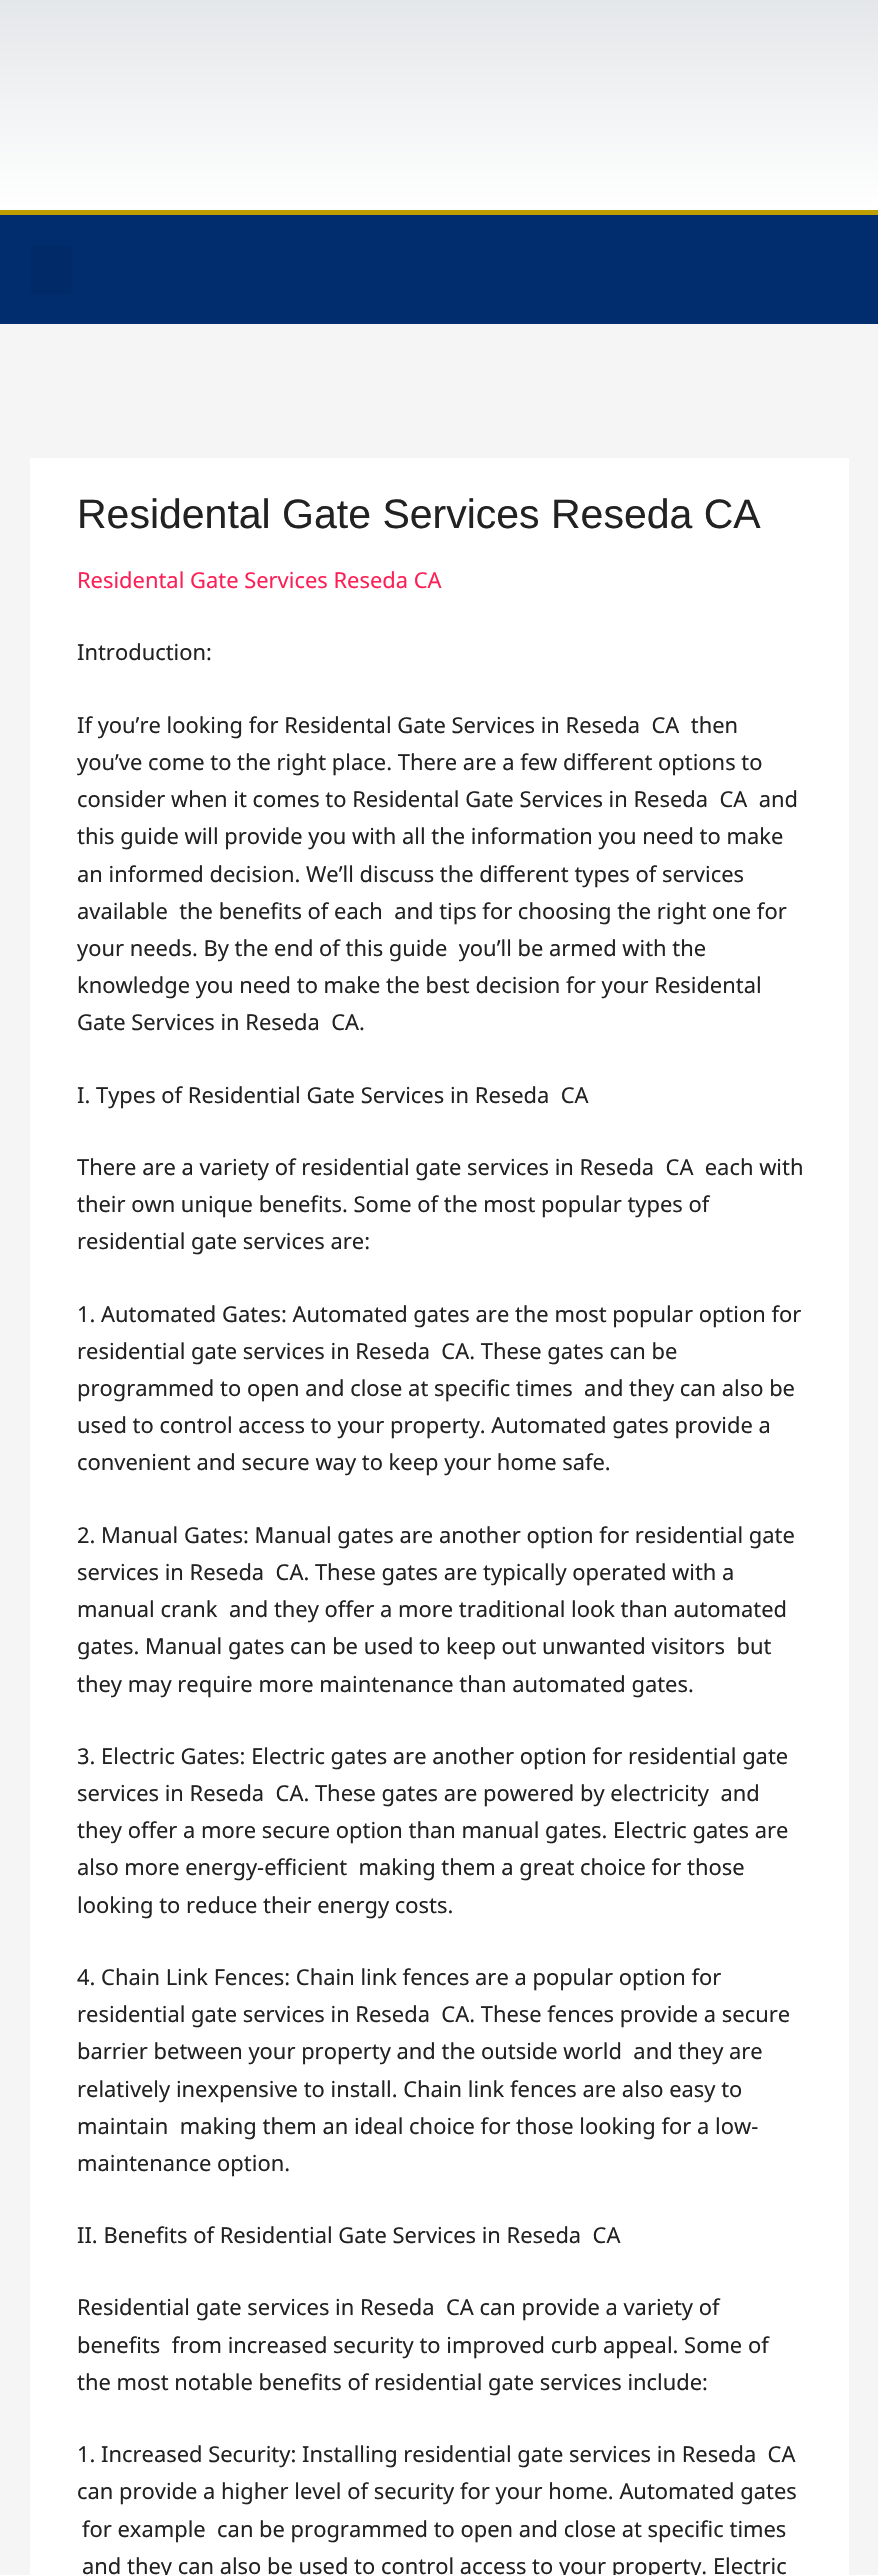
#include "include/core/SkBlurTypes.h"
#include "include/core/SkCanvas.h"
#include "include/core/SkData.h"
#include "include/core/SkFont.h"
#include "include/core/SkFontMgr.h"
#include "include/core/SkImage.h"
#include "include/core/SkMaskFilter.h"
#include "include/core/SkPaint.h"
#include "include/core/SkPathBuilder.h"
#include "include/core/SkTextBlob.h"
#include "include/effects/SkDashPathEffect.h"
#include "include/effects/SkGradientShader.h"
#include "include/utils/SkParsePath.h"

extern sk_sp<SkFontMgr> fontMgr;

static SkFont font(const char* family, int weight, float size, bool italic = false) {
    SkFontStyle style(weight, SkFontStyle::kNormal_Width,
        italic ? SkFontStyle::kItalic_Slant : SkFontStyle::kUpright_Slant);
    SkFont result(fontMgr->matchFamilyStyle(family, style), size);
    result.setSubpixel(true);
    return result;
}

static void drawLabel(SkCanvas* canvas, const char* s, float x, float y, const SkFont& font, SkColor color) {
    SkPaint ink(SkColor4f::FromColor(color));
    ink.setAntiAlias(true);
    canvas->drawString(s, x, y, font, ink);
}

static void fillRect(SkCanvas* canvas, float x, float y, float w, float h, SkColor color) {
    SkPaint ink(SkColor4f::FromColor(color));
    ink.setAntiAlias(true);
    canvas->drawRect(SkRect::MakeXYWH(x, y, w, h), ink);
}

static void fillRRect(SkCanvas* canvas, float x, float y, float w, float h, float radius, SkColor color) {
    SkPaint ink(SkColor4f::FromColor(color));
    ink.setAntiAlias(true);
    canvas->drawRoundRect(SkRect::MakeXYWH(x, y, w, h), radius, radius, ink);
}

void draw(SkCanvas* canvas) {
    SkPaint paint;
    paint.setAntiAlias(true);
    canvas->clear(0xFFF5F5F5);
    {
        const SkColor colors[] = {0xFFE4E7E9, 0xFFFFFFFF};
        const float stops[] = {0, 1};
        const SkPoint ends[] = {{440, 0}, {440, 210}};
        paint.setShader(SkGradientShader::MakeLinear(ends, colors, stops, 2, SkTileMode::kClamp));
        paint.setAlpha(255);
    }
    canvas->drawRect(SkRect::MakeXYWH(0, 0, 878, 210), paint);
    fillRect(canvas, 0, 215, 878, 109, 0xFF012C6D);
    fillRect(canvas, 0, 210, 878, 5, 0xFFBF9F00);
    fillRRect(canvas, 30, 245, 42, 49, 5, 0xFF012A68);
    fillRect(canvas, 30, 458, 819, 2117, 0xFFFFFFFF);
    SkFont font1 = font("Liberation Sans", 400, 41);
    drawLabel(canvas, "Residental Gate Services Reseda CA", 77, 528, font1, 0xFF222222);
    SkFont font2 = font("Noto Sans", 400, 21.9f);
    drawLabel(canvas, "Residental Gate Services Reseda CA", 77, 588, font2, 0xFFFB2056);
    drawLabel(canvas, "Introduction:", 77, 660, font2, 0xFF222222);
    drawLabel(canvas, "If you’re looking for Residental Gate Services in Reseda  CA  then", 77, 733, font2, 0xFF222222);
    drawLabel(canvas, "you’ve come to the right place. There are a few different options to", 77, 770, font2, 0xFF222222);
    drawLabel(canvas, "consider when it comes to Residental Gate Services in Reseda  CA  and", 77, 807, font2, 0xFF222222);
    drawLabel(canvas, "this guide will provide you with all the information you need to make", 77, 844, font2, 0xFF222222);
    drawLabel(canvas, "an informed decision. We’ll discuss the different types of services", 77, 882, font2, 0xFF222222);
    drawLabel(canvas, "available  the benefits of each  and tips for choosing the right one for", 77, 919, font2, 0xFF222222);
    drawLabel(canvas, "your needs. By the end of this guide  you’ll be armed with the", 77, 956, font2, 0xFF222222);
    drawLabel(canvas, "knowledge you need to make the best decision for your Residental", 77, 993, font2, 0xFF222222);
    drawLabel(canvas, "Gate Services in Reseda  CA.", 77, 1030, font2, 0xFF222222);
    drawLabel(canvas, "I. Types of Residential Gate Services in Reseda  CA", 77, 1103, font2, 0xFF222222);
    drawLabel(canvas, "There are a variety of residential gate services in Reseda  CA  each with", 77, 1175, font2, 0xFF222222);
    drawLabel(canvas, "their own unique benefits. Some of the most popular types of", 77, 1212, font2, 0xFF222222);
    drawLabel(canvas, "residential gate services are:", 77, 1249, font2, 0xFF222222);
    drawLabel(canvas, "1. Automated Gates: Automated gates are the most popular option for", 77, 1322, font2, 0xFF222222);
    drawLabel(canvas, "residential gate services in Reseda  CA. These gates can be", 77, 1359, font2, 0xFF222222);
    drawLabel(canvas, "programmed to open and close at specific times  and they can also be", 77, 1396, font2, 0xFF222222);
    drawLabel(canvas, "used to control access to your property. Automated gates provide a", 77, 1433, font2, 0xFF222222);
    drawLabel(canvas, "convenient and secure way to keep your home safe.", 77, 1470, font2, 0xFF222222);
    drawLabel(canvas, "2. Manual Gates: Manual gates are another option for residential gate", 77, 1543, font2, 0xFF222222);
    drawLabel(canvas, "services in Reseda  CA. These gates are typically operated with a", 77, 1580, font2, 0xFF222222);
    drawLabel(canvas, "manual crank  and they offer a more traditional look than automated", 77, 1617, font2, 0xFF222222);
    drawLabel(canvas, "gates. Manual gates can be used to keep out unwanted visitors  but", 77, 1654, font2, 0xFF222222);
    drawLabel(canvas, "they may require more maintenance than automated gates.", 77, 1692, font2, 0xFF222222);
    drawLabel(canvas, "3. Electric Gates: Electric gates are another option for residential gate", 77, 1764, font2, 0xFF222222);
    drawLabel(canvas, "services in Reseda  CA. These gates are powered by electricity  and", 77, 1801, font2, 0xFF222222);
    drawLabel(canvas, "they offer a more secure option than manual gates. Electric gates are", 77, 1838, font2, 0xFF222222);
    drawLabel(canvas, "also more energy-efficient  making them a great choice for those", 77, 1875, font2, 0xFF222222);
    drawLabel(canvas, "looking to reduce their energy costs.", 77, 1913, font2, 0xFF222222);
    drawLabel(canvas, "4. Chain Link Fences: Chain link fences are a popular option for", 77, 1985, font2, 0xFF222222);
    drawLabel(canvas, "residential gate services in Reseda  CA. These fences provide a secure", 77, 2022, font2, 0xFF222222);
    drawLabel(canvas, "barrier between your property and the outside world  and they are", 77, 2059, font2, 0xFF222222);
    drawLabel(canvas, "relatively inexpensive to install. Chain link fences are also easy to", 77, 2097, font2, 0xFF222222);
    drawLabel(canvas, "maintain  making them an ideal choice for those looking for a low-", 77, 2134, font2, 0xFF222222);
    drawLabel(canvas, "maintenance option.", 77, 2171, font2, 0xFF222222);
    drawLabel(canvas, "II. Benefits of Residential Gate Services in Reseda  CA", 77, 2243, font2, 0xFF222222);
    drawLabel(canvas, "Residential gate services in Reseda  CA can provide a variety of", 77, 2315, font2, 0xFF222222);
    drawLabel(canvas, "benefits  from increased security to improved curb appeal. Some of", 77, 2353, font2, 0xFF222222);
    drawLabel(canvas, "the most notable benefits of residential gate services include:", 77, 2390, font2, 0xFF222222);
    drawLabel(canvas, "1. Increased Security: Installing residential gate services in Reseda  CA", 77, 2462, font2, 0xFF222222);
    drawLabel(canvas, "can provide a higher level of security for your home. Automated gates", 77, 2499, font2, 0xFF222222);
    drawLabel(canvas, "for example  can be programmed to open and close at specific times", 82, 2537, font2, 0xFF222222);
    drawLabel(canvas, "and they can also be used to control access to your property. Electric", 82, 2574, font2, 0xFF222222);
}
